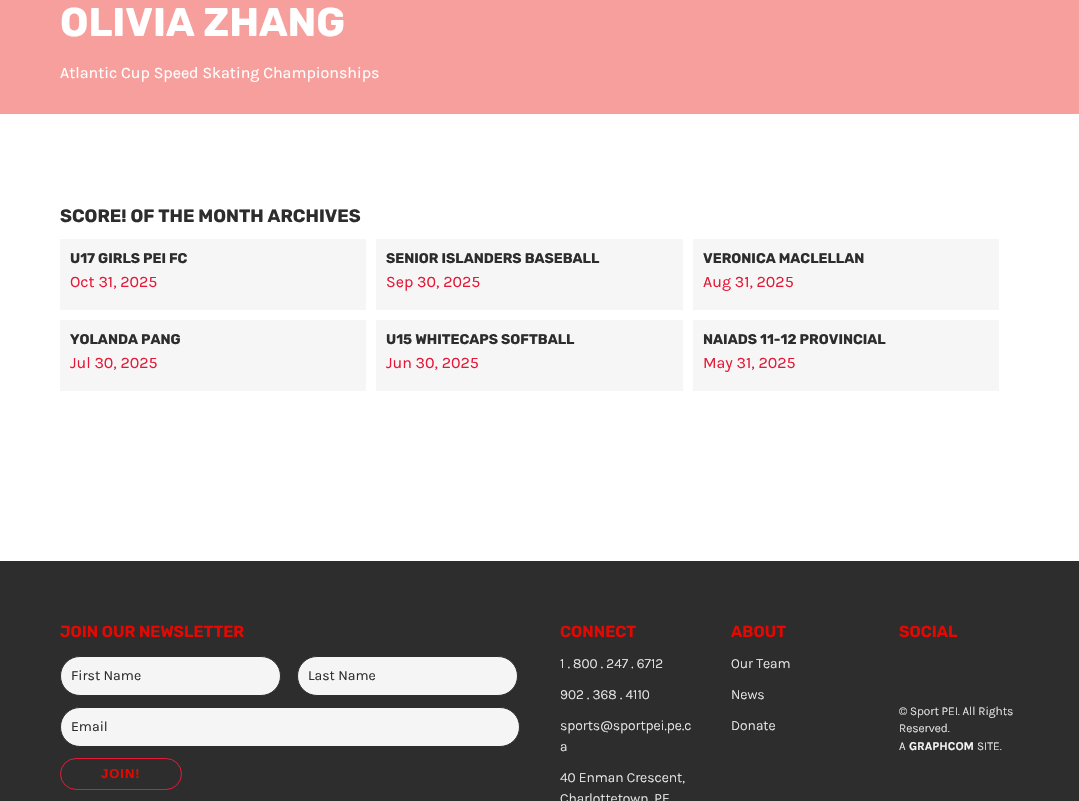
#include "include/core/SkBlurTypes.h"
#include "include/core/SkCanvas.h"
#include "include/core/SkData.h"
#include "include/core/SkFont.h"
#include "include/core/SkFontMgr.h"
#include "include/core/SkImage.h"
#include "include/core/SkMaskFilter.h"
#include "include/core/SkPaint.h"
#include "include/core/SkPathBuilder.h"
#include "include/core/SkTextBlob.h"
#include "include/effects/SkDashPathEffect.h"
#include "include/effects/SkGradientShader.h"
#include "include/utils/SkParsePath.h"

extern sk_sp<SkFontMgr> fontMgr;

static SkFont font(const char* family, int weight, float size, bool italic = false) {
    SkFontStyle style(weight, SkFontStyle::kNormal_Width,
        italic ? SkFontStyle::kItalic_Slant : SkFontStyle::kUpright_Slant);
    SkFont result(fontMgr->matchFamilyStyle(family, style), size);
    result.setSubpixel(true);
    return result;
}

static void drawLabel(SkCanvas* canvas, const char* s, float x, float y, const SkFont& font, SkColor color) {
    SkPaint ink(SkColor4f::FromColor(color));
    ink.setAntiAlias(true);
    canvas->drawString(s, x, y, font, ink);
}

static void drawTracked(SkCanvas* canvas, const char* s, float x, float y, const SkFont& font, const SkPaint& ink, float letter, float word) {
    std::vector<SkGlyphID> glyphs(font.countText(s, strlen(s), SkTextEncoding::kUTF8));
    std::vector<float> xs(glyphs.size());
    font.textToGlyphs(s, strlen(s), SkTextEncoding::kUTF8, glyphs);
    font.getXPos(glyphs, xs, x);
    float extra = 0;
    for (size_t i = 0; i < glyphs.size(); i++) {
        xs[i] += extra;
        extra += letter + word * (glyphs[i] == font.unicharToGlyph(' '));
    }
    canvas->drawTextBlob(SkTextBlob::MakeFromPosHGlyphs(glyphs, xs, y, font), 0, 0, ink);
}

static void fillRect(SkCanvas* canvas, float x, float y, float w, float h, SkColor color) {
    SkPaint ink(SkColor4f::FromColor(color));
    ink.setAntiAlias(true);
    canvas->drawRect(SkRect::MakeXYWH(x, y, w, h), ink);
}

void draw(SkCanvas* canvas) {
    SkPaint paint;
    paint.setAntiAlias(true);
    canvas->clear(0xFFFFFFFF);
    fillRect(canvas, 0, 0, 1079, 114, 0xFFF69F9C);
    SkFont font1 = font("Rubik", 700, 40);
    drawLabel(canvas, "OLIVIA ZHANG", 60, 36, font1, 0xFFFFFFFF);
    SkFont font2 = font("Karla", 400, 16);
    drawLabel(canvas, "Atlantic Cup Speed Skating Championships", 60, 78, font2, 0xFFFFFFFF);
    SkFont font3 = font("Rubik", 700, 18);
    drawLabel(canvas, "SCORE! OF THE MONTH ARCHIVES", 60, 222, font3, 0xFF2D2D2D);
    fillRect(canvas, 60, 239, 306, 71, 0xFFF6F6F6);
    SkFont font4 = font("Rubik", 700, 14);
    drawLabel(canvas, "U17 GIRLS PEI FC", 70, 263, font4, 0xFF2D2D2D);
    drawLabel(canvas, "Oct 31, 2025", 70, 287, font2, 0xFFE51937);
    fillRect(canvas, 376, 239, 307, 71, 0xFFF6F6F6);
    drawLabel(canvas, "SENIOR ISLANDERS BASEBALL", 386, 263, font4, 0xFF2D2D2D);
    drawLabel(canvas, "Sep 30, 2025", 386, 287, font2, 0xFFE51937);
    fillRect(canvas, 693, 239, 306, 71, 0xFFF6F6F6);
    drawLabel(canvas, "VERONICA MACLELLAN", 703, 263, font4, 0xFF2D2D2D);
    drawLabel(canvas, "Aug 31, 2025", 703, 287, font2, 0xFFE51937);
    fillRect(canvas, 60, 320, 306, 71, 0xFFF6F6F6);
    drawLabel(canvas, "YOLANDA PANG", 70, 344, font4, 0xFF2D2D2D);
    drawLabel(canvas, "Jul 30, 2025", 70, 368, font2, 0xFFE51937);
    fillRect(canvas, 376, 320, 307, 71, 0xFFF6F6F6);
    drawLabel(canvas, "U15 WHITECAPS SOFTBALL", 386, 344, font4, 0xFF2D2D2D);
    drawLabel(canvas, "Jun 30, 2025", 386, 368, font2, 0xFFE51937);
    fillRect(canvas, 693, 320, 306, 71, 0xFFF6F6F6);
    drawLabel(canvas, "NAIADS 11-12 PROVINCIAL", 703, 344, font4, 0xFF2D2D2D);
    drawLabel(canvas, "May 31, 2025", 703, 368, font2, 0xFFE51937);
    fillRect(canvas, 0, 561, 1079, 240, 0xFF2D2D2D);
    SkFont font5 = font("Rubik", 600, 16);
    drawLabel(canvas, "JOIN OUR NEWSLETTER", 60, 637, font5, 0xFFE60800);
    paint.setColor(0xFFF5F5F5);
    canvas->drawRoundRect(SkRect::MakeXYWH(60.5f, 656.5f, 220, 39), 19.5f, 19.5f, paint);
    paint.setStroke(true);
    paint.setStrokeWidth(1);
    paint.setColor(0xFF2D2D2D);
    canvas->drawRoundRect(SkRect::MakeXYWH(60.5f, 656.5f, 220, 39), 19.5f, 19.5f, paint);
    SkFont font6 = font("Karla", 400, 14);
    drawLabel(canvas, "First Name", 71, 680, font6, 0xFF2D2D2D);
    paint.setStroke(false);
    paint.setColor(0xFFF5F5F5);
    canvas->drawRoundRect(SkRect::MakeXYWH(297.5f, 656.5f, 220, 39), 19.5f, 19.5f, paint);
    paint.setStroke(true);
    paint.setColor(0xFF2D2D2D);
    canvas->drawRoundRect(SkRect::MakeXYWH(297.5f, 656.5f, 220, 39), 19.5f, 19.5f, paint);
    drawLabel(canvas, "Last Name", 308, 680, font6, 0xFF2D2D2D);
    paint.setStroke(false);
    paint.setColor(0xFFF5F5F5);
    canvas->drawRoundRect(SkRect::MakeXYWH(60.5f, 707.5f, 459, 39), 19.5f, 19.5f, paint);
    paint.setStroke(true);
    paint.setColor(0xFF2D2D2D);
    canvas->drawRoundRect(SkRect::MakeXYWH(60.5f, 707.5f, 459, 39), 19.5f, 19.5f, paint);
    drawLabel(canvas, "Email", 71, 731, font6, 0xFF2D2D2D);
    paint.setColor(0xFFE51937);
    canvas->drawRoundRect(SkRect::MakeXYWH(60.5f, 758.5f, 121, 31), 15.5f, 15.5f, paint);
    SkFont font7 = font("Liberation Sans", 700, 13);
    paint.setStroke(false);
    paint.setColor(0xFFE60800);
    drawTracked(canvas, "JOIN!", 101, 778, font7, paint, 1, 0);
    drawLabel(canvas, "CONNECT", 560, 637, font5, 0xFFE60800);
    SkFont font8 = font("Karla", 300, 14);
    drawLabel(canvas, "1 . 800 . 247 . 6712", 560, 668, font8, 0xFFF5F5F5);
    drawLabel(canvas, "902 . 368 . 4110", 560, 699, font8, 0xFFF5F5F5);
    drawLabel(canvas, "sports@sportpei.pe.c", 560, 730, font8, 0xFFF5F5F5);
    drawLabel(canvas, "a", 560, 751, font8, 0xFFF5F5F5);
    drawLabel(canvas, "40 Enman Crescent,", 560, 782, font8, 0xFFF5F5F5);
    drawLabel(canvas, "Charlottetown, PE", 560, 803, font8, 0xFFF5F5F5);
    drawLabel(canvas, "ABOUT", 731, 637, font5, 0xFFE60800);
    drawLabel(canvas, "Our Team", 731, 668, font8, 0xFFF5F5F5);
    drawLabel(canvas, "News", 731, 699, font8, 0xFFF5F5F5);
    drawLabel(canvas, "Donate", 731, 730, font8, 0xFFF5F5F5);
    drawLabel(canvas, "SOCIAL", 899, 637, font5, 0xFFE60800);
    SkFont font9 = font("Karla", 300, 12);
    drawLabel(canvas, "© Sport PEI. All Rights", 899, 715, font9, 0xFFF5F5F5);
    drawLabel(canvas, "Reserved.", 899, 732, font9, 0xFFF5F5F5);
    drawLabel(canvas, "A", 899, 750, font9, 0xFFF5F5F5);
    SkFont font10 = font("Karla", 700, 12);
    drawLabel(canvas, "GRAPHCOM", 909, 750, font10, 0xFFF5F5F5);
    drawLabel(canvas, "SITE.", 977, 750, font9, 0xFFF5F5F5);
}
